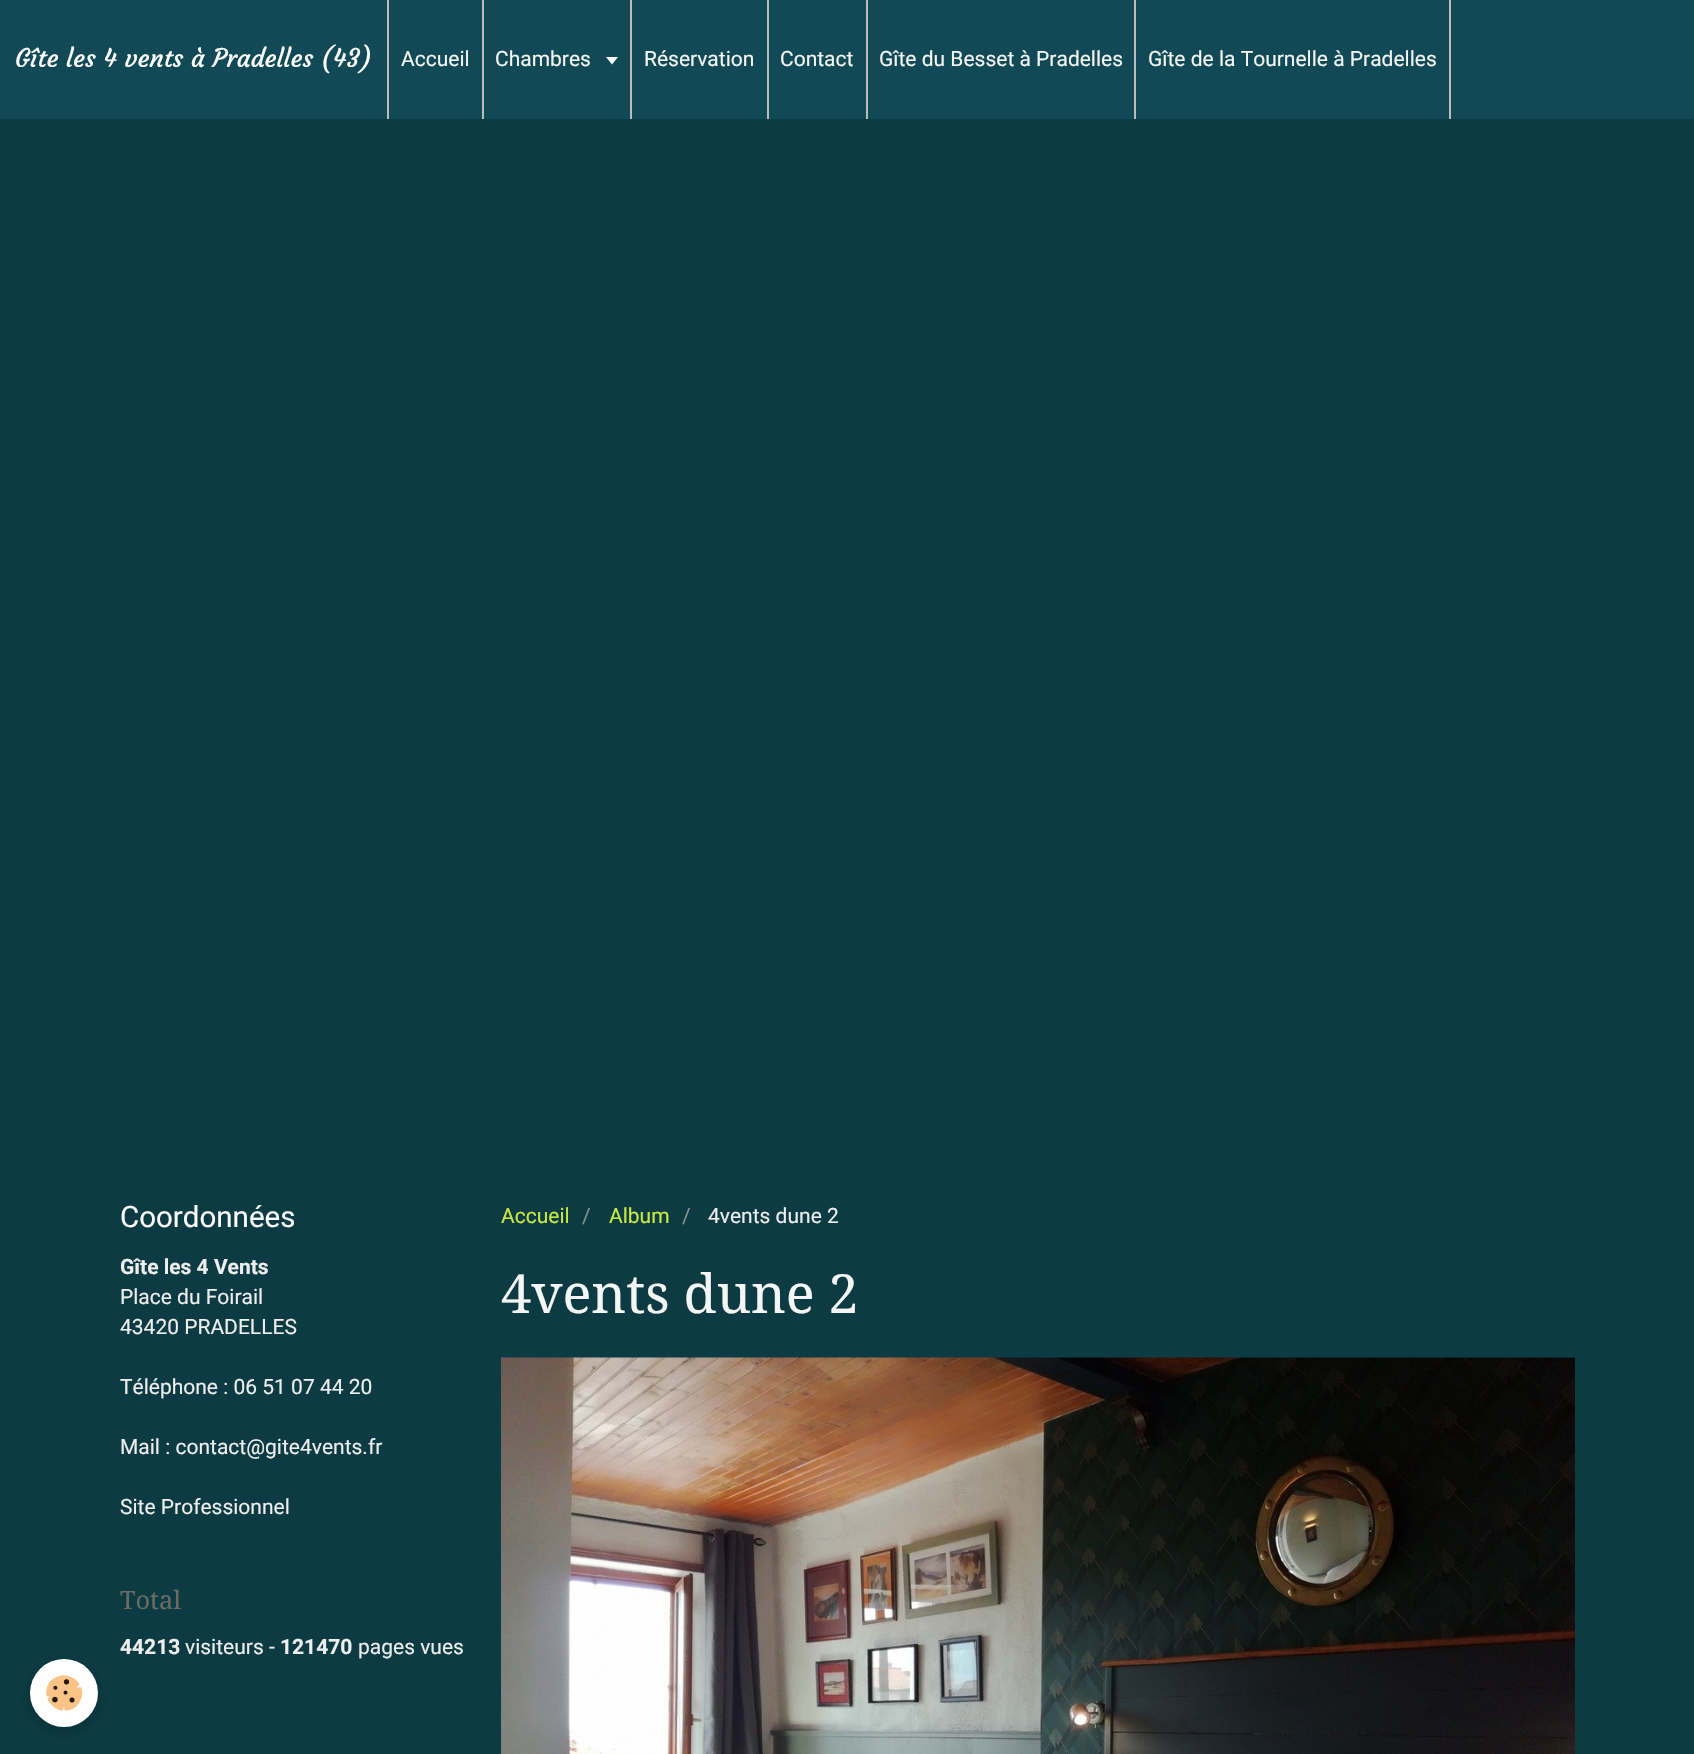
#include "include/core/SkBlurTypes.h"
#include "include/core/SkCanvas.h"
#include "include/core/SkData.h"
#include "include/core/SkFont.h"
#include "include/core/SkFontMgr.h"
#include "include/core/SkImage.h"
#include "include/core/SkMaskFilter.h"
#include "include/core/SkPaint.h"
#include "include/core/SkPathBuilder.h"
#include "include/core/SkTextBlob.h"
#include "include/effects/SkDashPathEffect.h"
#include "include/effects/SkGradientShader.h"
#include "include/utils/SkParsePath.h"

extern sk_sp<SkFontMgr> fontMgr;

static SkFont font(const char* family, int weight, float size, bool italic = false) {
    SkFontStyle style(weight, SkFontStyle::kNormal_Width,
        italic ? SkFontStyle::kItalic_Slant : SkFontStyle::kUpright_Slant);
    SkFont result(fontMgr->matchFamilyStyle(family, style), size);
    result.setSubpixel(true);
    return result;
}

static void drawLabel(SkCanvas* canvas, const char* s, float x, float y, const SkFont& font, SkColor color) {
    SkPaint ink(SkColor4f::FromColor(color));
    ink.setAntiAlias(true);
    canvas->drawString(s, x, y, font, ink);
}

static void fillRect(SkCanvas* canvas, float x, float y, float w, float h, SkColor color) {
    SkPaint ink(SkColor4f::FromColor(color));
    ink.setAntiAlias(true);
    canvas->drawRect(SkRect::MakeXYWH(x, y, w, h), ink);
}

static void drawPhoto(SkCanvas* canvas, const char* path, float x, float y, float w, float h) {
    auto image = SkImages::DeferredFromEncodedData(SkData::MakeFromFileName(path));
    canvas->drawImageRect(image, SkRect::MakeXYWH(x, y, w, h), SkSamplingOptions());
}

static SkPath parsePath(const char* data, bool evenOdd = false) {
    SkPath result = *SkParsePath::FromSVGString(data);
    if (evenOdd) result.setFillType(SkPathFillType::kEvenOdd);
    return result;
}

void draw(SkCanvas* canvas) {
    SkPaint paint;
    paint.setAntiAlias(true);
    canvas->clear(0xFF0D3B44);
    fillRect(canvas, 0, 0, 1694, 119, 0xFF114A56);
    SkFont font1 = font("Courgette", 400, 25.25f);
    drawLabel(canvas, "Gîte les 4 vents à Pradelles (43)", 15, 67, font1, 0xFFFFFFFF);
    fillRect(canvas, 482, 0, 2, 119, 0xFFBCBCBC);
    fillRect(canvas, 387, 0, 2, 119, 0xFFBCBCBC);
    SkFont font2 = font("Roboto", 400, 21);
    drawLabel(canvas, "Accueil", 401, 66, font2, 0xFFF3F6F4);
    fillRect(canvas, 630, 0, 2, 119, 0xFFBCBCBC);
    drawLabel(canvas, "Chambres", 495, 66, font2, 0xFFF3F6F4);
    paint.setColor(0xFFF3F6F4);
    canvas->drawPath(parsePath("M606 57H618L612 64.5Z"), paint);
    fillRect(canvas, 767, 0, 2, 119, 0xFFBCBCBC);
    drawLabel(canvas, "Réservation", 644, 66, font2, 0xFFF3F6F4);
    fillRect(canvas, 866, 0, 2, 119, 0xFFBCBCBC);
    drawLabel(canvas, "Contact", 780, 66, font2, 0xFFF3F6F4);
    fillRect(canvas, 1134, 0, 2, 119, 0xFFBCBCBC);
    drawLabel(canvas, "Gîte du Besset à Pradelles", 879, 66, font2, 0xFFF3F6F4);
    fillRect(canvas, 1449, 0, 2, 119, 0xFFBCBCBC);
    drawLabel(canvas, "Gîte de la Tournelle à Pradelles", 1148, 66, font2, 0xFFF3F6F4);
    SkFont font3 = font("Roboto", 400, 29.5f);
    drawLabel(canvas, "Coordonnées", 120, 1227, font3, 0xFFFFFFFF);
    SkFont font4 = font("Roboto", 700, 21);
    drawLabel(canvas, "Gîte les 4 Vents", 120, 1274, font4, 0xFFEEEEEE);
    drawLabel(canvas, "Place du Foirail", 120, 1304, font2, 0xFFEEEEEE);
    drawLabel(canvas, "43420 PRADELLES", 120, 1334, font2, 0xFFEEEEEE);
    drawLabel(canvas, "Téléphone : 06 51 07 44 20", 120, 1394, font2, 0xFFEEEEEE);
    drawLabel(canvas, "Mail : contact@gite4vents.fr", 120, 1454, font2, 0xFFEEEEEE);
    drawLabel(canvas, "Site Professionnel", 120, 1514, font2, 0xFFEEEEEE);
    SkFont font5 = font("Droid Serif", 400, 25.25f);
    drawLabel(canvas, "Total", 120, 1609, font5, 0xFF6A6C64);
    drawLabel(canvas, "44213", 120, 1654, font4, 0xFFEEEEEE);
    drawLabel(canvas, "visiteurs -", 185, 1654, font2, 0xFFEEEEEE);
    drawLabel(canvas, "121470", 280, 1654, font4, 0xFFEEEEEE);
    drawLabel(canvas, "pages vues", 358, 1654, font2, 0xFFEEEEEE);
    drawLabel(canvas, "Accueil", 501, 1223, font2, 0xFFC7E744);
    drawLabel(canvas, "/", 582, 1223, font2, 0xFF86918B);
    drawLabel(canvas, "Album", 609, 1223, font2, 0xFFC7E744);
    drawLabel(canvas, "/", 682, 1223, font2, 0xFF86918B);
    drawLabel(canvas, "4vents dune 2", 708, 1223, font2, 0xFFEEEEEE);
    SkFont font6 = font("Droid Serif", 400, 54);
    drawLabel(canvas, "4vents dune 2", 501, 1313, font6, 0xFFF3F6F4);
    drawPhoto(canvas, "assets/img1.png", 501, 1357, 1074, 397);
    paint.setColor(0x3D000000);
    paint.setMaskFilter(SkMaskFilter::MakeBlur(kNormal_SkBlurStyle, 7.5f));
    canvas->drawRoundRect(SkRect::MakeXYWH(30, 1664, 68, 67), 33.5f, 33.5f, paint);
    paint.setMaskFilter(nullptr);
    paint.setColor(0xFFFFFFFF);
    canvas->drawCircle(64, 1693, 34, paint);
    drawPhoto(canvas, "assets/img2.png", 46, 1675, 37, 36);
}
